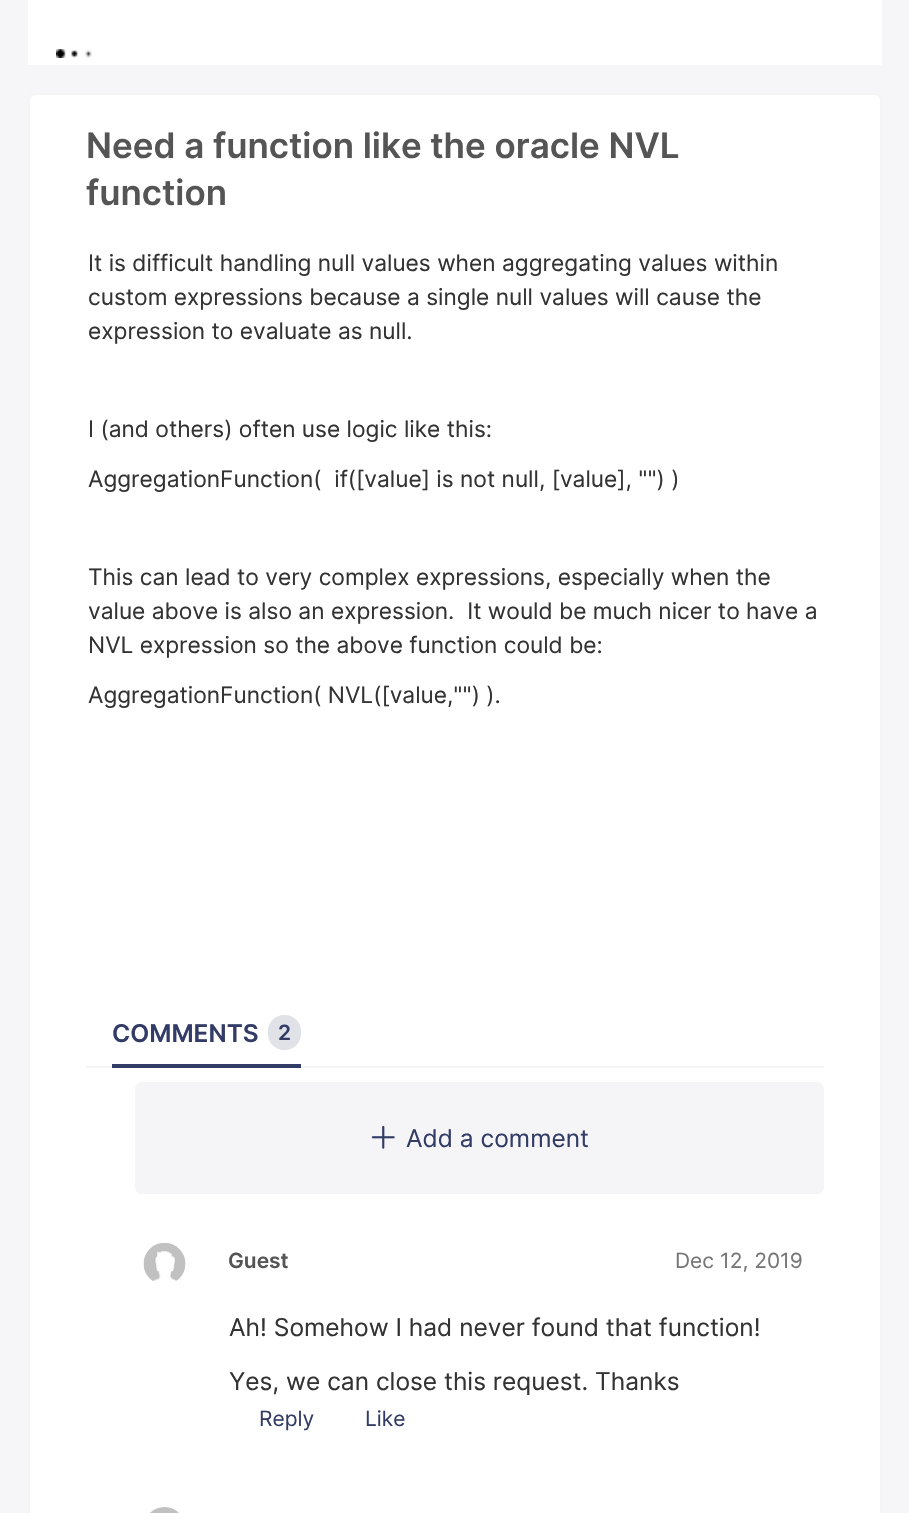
#include "include/core/SkBlurTypes.h"
#include "include/core/SkCanvas.h"
#include "include/core/SkData.h"
#include "include/core/SkFont.h"
#include "include/core/SkFontMgr.h"
#include "include/core/SkImage.h"
#include "include/core/SkMaskFilter.h"
#include "include/core/SkPaint.h"
#include "include/core/SkPathBuilder.h"
#include "include/core/SkTextBlob.h"
#include "include/effects/SkDashPathEffect.h"
#include "include/effects/SkGradientShader.h"
#include "include/utils/SkParsePath.h"

extern sk_sp<SkFontMgr> fontMgr;

static SkFont font(const char* family, int weight, float size, bool italic = false) {
    SkFontStyle style(weight, SkFontStyle::kNormal_Width,
        italic ? SkFontStyle::kItalic_Slant : SkFontStyle::kUpright_Slant);
    SkFont result(fontMgr->matchFamilyStyle(family, style), size);
    result.setSubpixel(true);
    return result;
}

static void drawLabel(SkCanvas* canvas, const char* s, float x, float y, const SkFont& font, SkColor color) {
    SkPaint ink(SkColor4f::FromColor(color));
    ink.setAntiAlias(true);
    canvas->drawString(s, x, y, font, ink);
}

static void fillRect(SkCanvas* canvas, float x, float y, float w, float h, SkColor color) {
    SkPaint ink(SkColor4f::FromColor(color));
    ink.setAntiAlias(true);
    canvas->drawRect(SkRect::MakeXYWH(x, y, w, h), ink);
}

static void fillRRect(SkCanvas* canvas, float x, float y, float w, float h, float radius, SkColor color) {
    SkPaint ink(SkColor4f::FromColor(color));
    ink.setAntiAlias(true);
    canvas->drawRoundRect(SkRect::MakeXYWH(x, y, w, h), radius, radius, ink);
}

static void drawPhoto(SkCanvas* canvas, const char* path, float x, float y, float w, float h) {
    auto image = SkImages::DeferredFromEncodedData(SkData::MakeFromFileName(path));
    canvas->drawImageRect(image, SkRect::MakeXYWH(x, y, w, h), SkSamplingOptions());
}

void draw(SkCanvas* canvas) {
    SkPaint paint;
    paint.setAntiAlias(true);
    canvas->clear(0xFFF6F6F8);
    fillRect(canvas, 28, 0, 854, 65, 0xFFFFFFFF);
    drawPhoto(canvas, "assets/img1.png", 56, 49, 37, 9);
    paint.setColor(0xFFFFFFFF);
    canvas->drawRoundRect(SkRect::MakeXYWH(29, 94, 852, 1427), 6, 6, paint);
    paint.setStroke(true);
    paint.setStrokeWidth(2);
    paint.setColor(0xFFF4F4F4);
    canvas->drawRoundRect(SkRect::MakeXYWH(29, 94, 852, 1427), 6, 6, paint);
    SkFont font1 = font("Inter", 600, 35);
    drawLabel(canvas, "Need a function like the oracle NVL", 86, 158, font1, 0xFF555555);
    drawLabel(canvas, "function", 86, 205, font1, 0xFF555555);
    SkFont font2 = font("Inter", 400, 22.75f);
    drawLabel(canvas, "It is difficult handling null values when aggregating values within", 88, 271, font2, 0xFF333333);
    drawLabel(canvas, "custom expressions because a single null values will cause the", 88, 305, font2, 0xFF333333);
    drawLabel(canvas, "expression to evaluate as null.", 88, 339, font2, 0xFF333333);
    drawLabel(canvas, "I (and others) often use logic like this:", 88, 437, font2, 0xFF333333);
    drawLabel(canvas, "AggregationFunction(  if([value] is not null, [value], \"\") )", 88, 487, font2, 0xFF333333);
    drawLabel(canvas, "This can lead to very complex expressions, especially when the", 88, 585, font2, 0xFF333333);
    drawLabel(canvas, "value above is also an expression.  It would be much nicer to have a", 88, 619, font2, 0xFF333333);
    drawLabel(canvas, "NVL expression so the above function could be:", 88, 653, font2, 0xFF333333);
    drawLabel(canvas, "AggregationFunction( NVL([value,\"\") ).", 88, 703, font2, 0xFF333333);
    fillRect(canvas, 86, 1066, 738, 2, 0xFFF4F4F4);
    fillRect(canvas, 112, 1064, 189, 4, 0xFF333C66);
    SkFont font3 = font("Inter", 600, 24.5f);
    drawLabel(canvas, "COMMENTS", 112, 1042, font3, 0xFF333C66);
    fillRRect(canvas, 268, 1015, 33, 35, 16, 0xFFE0E2E8);
    SkFont font4 = font("Inter", 600, 21);
    drawLabel(canvas, "2", 278, 1040, font4, 0xFF333C66);
    fillRRect(canvas, 135, 1082, 689, 112, 7, 0xFFF5F5F7);
    drawPhoto(canvas, "assets/img2.png", 371, 1125, 24, 24);
    SkFont font5 = font("Inter", 400, 24.5f);
    drawLabel(canvas, "Add a comment", 406, 1147, font5, 0xFF333C66);
    drawPhoto(canvas, "assets/img3.png", 143, 1243, 43, 39);
    drawLabel(canvas, "Guest", 228, 1268, font4, 0xFF555555);
    SkFont font6 = font("Inter", 400, 21);
    drawLabel(canvas, "Dec 12, 2019", 675, 1268, font6, 0xFF767676);
    drawLabel(canvas, "Ah! Somehow I had never found that function!", 229, 1336, font5, 0xFF333333);
    drawLabel(canvas, "Yes, we can close this request. Thanks", 229, 1390, font5, 0xFF333333);
    drawLabel(canvas, "Reply", 259, 1426, font6, 0xFF333C66);
    drawLabel(canvas, "Like", 365, 1426, font6, 0xFF333C66);
    drawPhoto(canvas, "assets/img4.png", 150, 1507, 29, 6);
}
